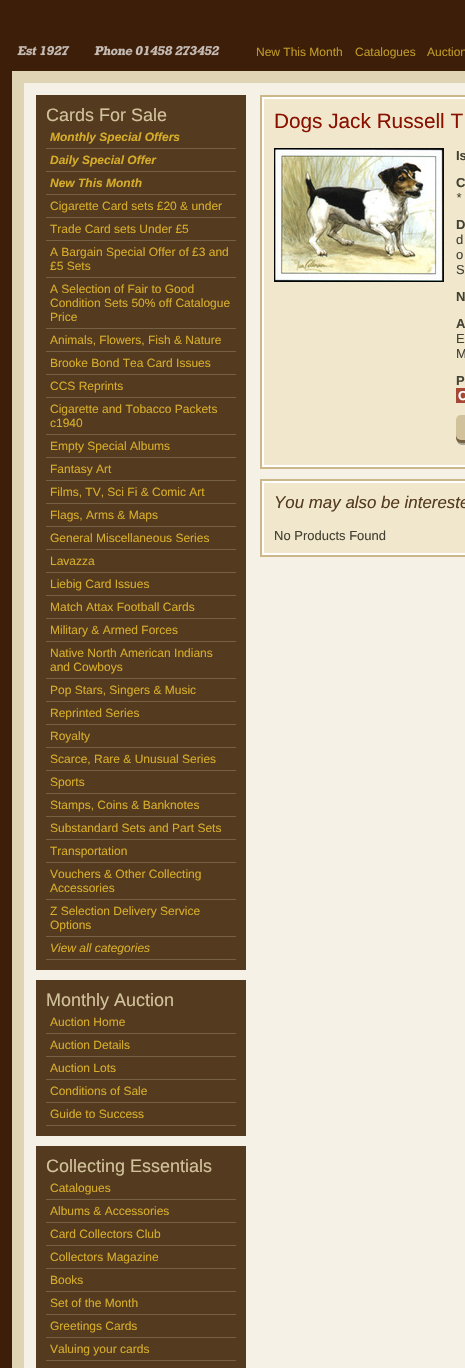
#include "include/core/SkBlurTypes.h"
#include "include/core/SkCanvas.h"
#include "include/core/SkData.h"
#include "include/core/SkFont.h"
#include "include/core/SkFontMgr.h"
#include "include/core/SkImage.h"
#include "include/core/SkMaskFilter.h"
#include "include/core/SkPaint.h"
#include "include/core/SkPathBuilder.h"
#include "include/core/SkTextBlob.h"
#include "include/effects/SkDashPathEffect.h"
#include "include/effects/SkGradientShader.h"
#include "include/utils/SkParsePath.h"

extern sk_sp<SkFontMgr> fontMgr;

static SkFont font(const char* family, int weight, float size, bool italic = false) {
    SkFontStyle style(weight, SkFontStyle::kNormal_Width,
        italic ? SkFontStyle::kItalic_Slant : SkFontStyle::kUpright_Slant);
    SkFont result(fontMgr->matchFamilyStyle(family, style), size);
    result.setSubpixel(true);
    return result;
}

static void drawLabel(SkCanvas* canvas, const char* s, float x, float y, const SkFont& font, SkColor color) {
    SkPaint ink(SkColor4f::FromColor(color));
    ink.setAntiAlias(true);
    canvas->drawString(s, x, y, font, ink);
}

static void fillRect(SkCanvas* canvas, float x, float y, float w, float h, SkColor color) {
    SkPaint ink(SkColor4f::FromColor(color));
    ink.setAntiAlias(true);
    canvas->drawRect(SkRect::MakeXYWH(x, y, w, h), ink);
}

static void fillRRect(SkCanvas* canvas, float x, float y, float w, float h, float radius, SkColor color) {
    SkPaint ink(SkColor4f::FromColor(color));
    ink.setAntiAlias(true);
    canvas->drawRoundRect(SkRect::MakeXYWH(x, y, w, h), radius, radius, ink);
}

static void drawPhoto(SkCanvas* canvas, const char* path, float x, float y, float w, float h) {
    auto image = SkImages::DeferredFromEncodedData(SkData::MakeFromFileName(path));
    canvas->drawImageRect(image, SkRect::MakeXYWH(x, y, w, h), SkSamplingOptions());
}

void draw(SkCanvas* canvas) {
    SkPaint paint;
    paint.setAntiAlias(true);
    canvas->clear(0xFF3D1E08);
    drawPhoto(canvas, "assets/img1.png", 17, 45, 203, 11);
    SkFont font1 = font("Liberation Sans", 400, 12);
    drawLabel(canvas, "New This Month", 256, 56, font1, 0xFFBE9926);
    drawLabel(canvas, "Catalogues", 355, 56, font1, 0xFFBE9926);
    drawLabel(canvas, "Auction", 427, 56, font1, 0xFFBE9926);
    fillRect(canvas, 12, 71, 453, 1297, 0xFFDFD4B4);
    fillRect(canvas, 24, 83, 441, 1285, 0xFFF5F1E6);
    fillRect(canvas, 36, 95, 210, 875, 0xFF543A1E);
    SkFont font2 = font("Liberation Sans", 400, 18);
    drawLabel(canvas, "Cards For Sale", 46, 121, font2, 0xFFD2C29C);
    fillRect(canvas, 46, 148, 190, 1, 0xFF766144);
    SkFont font3 = font("Liberation Sans", 700, 12, true);
    drawLabel(canvas, "Monthly Special Offers", 50, 141, font3, 0xFFD6AC2B);
    fillRect(canvas, 46, 171, 190, 1, 0xFF766144);
    drawLabel(canvas, "Daily Special Offer", 50, 164, font3, 0xFFD6AC2B);
    fillRect(canvas, 46, 194, 190, 1, 0xFF766144);
    drawLabel(canvas, "New This Month", 50, 187, font3, 0xFFD6AC2B);
    fillRect(canvas, 46, 217, 190, 1, 0xFF766144);
    drawLabel(canvas, "Cigarette Card sets £20 & under", 50, 210, font1, 0xFFD6AC2B);
    fillRect(canvas, 46, 240, 190, 1, 0xFF766144);
    drawLabel(canvas, "Trade Card sets Under £5", 50, 233, font1, 0xFFD6AC2B);
    fillRect(canvas, 46, 277, 190, 1, 0xFF766144);
    drawLabel(canvas, "A Bargain Special Offer of £3 and", 50, 256, font1, 0xFFD6AC2B);
    drawLabel(canvas, "£5 Sets", 50, 270, font1, 0xFFD6AC2B);
    fillRect(canvas, 46, 328, 190, 1, 0xFF766144);
    drawLabel(canvas, "A Selection of Fair to Good", 50, 293, font1, 0xFFD6AC2B);
    drawLabel(canvas, "Condition Sets 50% off Catalogue", 50, 307, font1, 0xFFD6AC2B);
    drawLabel(canvas, "Price", 50, 321, font1, 0xFFD6AC2B);
    fillRect(canvas, 46, 351, 190, 1, 0xFF766144);
    drawLabel(canvas, "Animals, Flowers, Fish & Nature", 50, 344, font1, 0xFFD6AC2B);
    fillRect(canvas, 46, 374, 190, 1, 0xFF766144);
    drawLabel(canvas, "Brooke Bond Tea Card Issues", 50, 367, font1, 0xFFD6AC2B);
    fillRect(canvas, 46, 397, 190, 1, 0xFF766144);
    drawLabel(canvas, "CCS Reprints", 50, 390, font1, 0xFFD6AC2B);
    fillRect(canvas, 46, 434, 190, 1, 0xFF766144);
    drawLabel(canvas, "Cigarette and Tobacco Packets", 50, 413, font1, 0xFFD6AC2B);
    drawLabel(canvas, "c1940", 50, 427, font1, 0xFFD6AC2B);
    fillRect(canvas, 46, 457, 190, 1, 0xFF766144);
    drawLabel(canvas, "Empty Special Albums", 50, 450, font1, 0xFFD6AC2B);
    fillRect(canvas, 46, 480, 190, 1, 0xFF766144);
    drawLabel(canvas, "Fantasy Art", 50, 473, font1, 0xFFD6AC2B);
    fillRect(canvas, 46, 503, 190, 1, 0xFF766144);
    drawLabel(canvas, "Films, TV, Sci Fi & Comic Art", 50, 496, font1, 0xFFD6AC2B);
    fillRect(canvas, 46, 526, 190, 1, 0xFF766144);
    drawLabel(canvas, "Flags, Arms & Maps", 50, 519, font1, 0xFFD6AC2B);
    fillRect(canvas, 46, 549, 190, 1, 0xFF766144);
    drawLabel(canvas, "General Miscellaneous Series", 50, 542, font1, 0xFFD6AC2B);
    fillRect(canvas, 46, 572, 190, 1, 0xFF766144);
    drawLabel(canvas, "Lavazza", 50, 565, font1, 0xFFD6AC2B);
    fillRect(canvas, 46, 595, 190, 1, 0xFF766144);
    drawLabel(canvas, "Liebig Card Issues", 50, 588, font1, 0xFFD6AC2B);
    fillRect(canvas, 46, 618, 190, 1, 0xFF766144);
    drawLabel(canvas, "Match Attax Football Cards", 50, 611, font1, 0xFFD6AC2B);
    fillRect(canvas, 46, 641, 190, 1, 0xFF766144);
    drawLabel(canvas, "Military & Armed Forces", 50, 634, font1, 0xFFD6AC2B);
    fillRect(canvas, 46, 678, 190, 1, 0xFF766144);
    drawLabel(canvas, "Native North American Indians", 50, 657, font1, 0xFFD6AC2B);
    drawLabel(canvas, "and Cowboys", 50, 671, font1, 0xFFD6AC2B);
    fillRect(canvas, 46, 701, 190, 1, 0xFF766144);
    drawLabel(canvas, "Pop Stars, Singers & Music", 50, 694, font1, 0xFFD6AC2B);
    fillRect(canvas, 46, 724, 190, 1, 0xFF766144);
    drawLabel(canvas, "Reprinted Series", 50, 717, font1, 0xFFD6AC2B);
    fillRect(canvas, 46, 747, 190, 1, 0xFF766144);
    drawLabel(canvas, "Royalty", 50, 740, font1, 0xFFD6AC2B);
    fillRect(canvas, 46, 770, 190, 1, 0xFF766144);
    drawLabel(canvas, "Scarce, Rare & Unusual Series", 50, 763, font1, 0xFFD6AC2B);
    fillRect(canvas, 46, 793, 190, 1, 0xFF766144);
    drawLabel(canvas, "Sports", 50, 786, font1, 0xFFD6AC2B);
    fillRect(canvas, 46, 816, 190, 1, 0xFF766144);
    drawLabel(canvas, "Stamps, Coins & Banknotes", 50, 809, font1, 0xFFD6AC2B);
    fillRect(canvas, 46, 839, 190, 1, 0xFF766144);
    drawLabel(canvas, "Substandard Sets and Part Sets", 50, 832, font1, 0xFFD6AC2B);
    fillRect(canvas, 46, 862, 190, 1, 0xFF766144);
    drawLabel(canvas, "Transportation", 50, 855, font1, 0xFFD6AC2B);
    fillRect(canvas, 46, 899, 190, 1, 0xFF766144);
    drawLabel(canvas, "Vouchers & Other Collecting", 50, 878, font1, 0xFFD6AC2B);
    drawLabel(canvas, "Accessories", 50, 892, font1, 0xFFD6AC2B);
    fillRect(canvas, 46, 936, 190, 1, 0xFF766144);
    drawLabel(canvas, "Z Selection Delivery Service", 50, 915, font1, 0xFFD6AC2B);
    drawLabel(canvas, "Options", 50, 929, font1, 0xFFD6AC2B);
    fillRect(canvas, 46, 959, 190, 1, 0xFF766144);
    SkFont font4 = font("Liberation Sans", 400, 12, true);
    drawLabel(canvas, "View all categories", 50, 952, font4, 0xFFD6AC2B);
    fillRect(canvas, 36, 980, 210, 156, 0xFF543A1E);
    drawLabel(canvas, "Monthly Auction", 46, 1006, font2, 0xFFD2C29C);
    fillRect(canvas, 46, 1033, 190, 1, 0xFF766144);
    drawLabel(canvas, "Auction Home", 50, 1026, font1, 0xFFD6AC2B);
    fillRect(canvas, 46, 1056, 190, 1, 0xFF766144);
    drawLabel(canvas, "Auction Details", 50, 1049, font1, 0xFFD6AC2B);
    fillRect(canvas, 46, 1079, 190, 1, 0xFF766144);
    drawLabel(canvas, "Auction Lots", 50, 1072, font1, 0xFFD6AC2B);
    fillRect(canvas, 46, 1102, 190, 1, 0xFF766144);
    drawLabel(canvas, "Conditions of Sale", 50, 1095, font1, 0xFFD6AC2B);
    fillRect(canvas, 46, 1125, 190, 1, 0xFF766144);
    drawLabel(canvas, "Guide to Success", 50, 1118, font1, 0xFFD6AC2B);
    fillRect(canvas, 36, 1146, 210, 222, 0xFF543A1E);
    drawLabel(canvas, "Collecting Essentials", 46, 1172, font2, 0xFFD2C29C);
    fillRect(canvas, 46, 1199, 190, 1, 0xFF766144);
    drawLabel(canvas, "Catalogues", 50, 1192, font1, 0xFFD6AC2B);
    fillRect(canvas, 46, 1222, 190, 1, 0xFF766144);
    drawLabel(canvas, "Albums & Accessories", 50, 1215, font1, 0xFFD6AC2B);
    fillRect(canvas, 46, 1245, 190, 1, 0xFF766144);
    drawLabel(canvas, "Card Collectors Club", 50, 1238, font1, 0xFFD6AC2B);
    fillRect(canvas, 46, 1268, 190, 1, 0xFF766144);
    drawLabel(canvas, "Collectors Magazine", 50, 1261, font1, 0xFFD6AC2B);
    fillRect(canvas, 46, 1291, 190, 1, 0xFF766144);
    drawLabel(canvas, "Books", 50, 1284, font1, 0xFFD6AC2B);
    fillRect(canvas, 46, 1314, 190, 1, 0xFF766144);
    drawLabel(canvas, "Set of the Month", 50, 1307, font1, 0xFFD6AC2B);
    fillRect(canvas, 46, 1337, 190, 1, 0xFF766144);
    drawLabel(canvas, "Greetings Cards", 50, 1330, font1, 0xFFD6AC2B);
    fillRect(canvas, 46, 1360, 190, 1, 0xFF766144);
    drawLabel(canvas, "Valuing your cards", 50, 1353, font1, 0xFFD6AC2B);
    fillRect(canvas, 264, 99, 201, 366, 0xFFF0E7CC);
    paint.setStroke(true);
    paint.setStrokeWidth(2);
    paint.setColor(0xFFCBB787);
    canvas->drawRect(SkRect::MakeXYWH(261, 96, 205, 372), paint);
    paint.setColor(0xFFFFFFFF);
    canvas->drawRect(SkRect::MakeXYWH(263, 98, 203, 368), paint);
    SkFont font5 = font("Liberation Sans", 400, 20.75f);
    drawLabel(canvas, "Dogs Jack Russell T", 274, 128, font5, 0xFF8A1000);
    drawPhoto(canvas, "assets/img2.png", 274, 148, 170, 134);
    SkFont font6 = font("Liberation Sans", 700, 13);
    drawLabel(canvas, "Is", 456, 160, font6, 0xFF434132);
    drawLabel(canvas, "C", 456, 187, font6, 0xFF434132);
    SkFont font7 = font("Liberation Sans", 400, 13, true);
    drawLabel(canvas, "*", 456, 202, font7, 0xFF434132);
    drawLabel(canvas, "D", 456, 229, font6, 0xFF434132);
    SkFont font8 = font("Liberation Sans", 400, 13);
    drawLabel(canvas, "d", 456, 244, font8, 0xFF434132);
    drawLabel(canvas, "o", 456, 259, font8, 0xFF434132);
    drawLabel(canvas, "S", 456, 274, font8, 0xFF434132);
    drawLabel(canvas, "N", 456, 301, font6, 0xFF434132);
    drawLabel(canvas, "A", 456, 328, font6, 0xFF434132);
    drawLabel(canvas, "E", 456, 343, font8, 0xFF434132);
    drawLabel(canvas, "M", 456, 358, font8, 0xFF434132);
    drawLabel(canvas, "P", 456, 385, font6, 0xFF434132);
    fillRect(canvas, 456, 388, 9, 15, 0xFFA54936);
    drawLabel(canvas, "O", 458, 400, font6, 0xFFFFFFFF);
    fillRRect(canvas, 457, 423, 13, 22, 5, 0xFFA8A28F);
    fillRRect(canvas, 456, 418, 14, 25, 5, 0xFF766144);
    fillRRect(canvas, 456, 415, 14, 25, 5, 0xFFD2C29C);
    fillRect(canvas, 264, 483, 201, 70, 0xFFF0E7CC);
    paint.setColor(0xFFCBB787);
    canvas->drawRect(SkRect::MakeXYWH(261, 480, 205, 76), paint);
    paint.setColor(0xFFFFFFFF);
    canvas->drawRect(SkRect::MakeXYWH(263, 482, 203, 72), paint);
    SkFont font9 = font("Liberation Sans", 400, 16.9f, true);
    drawLabel(canvas, "You may also be intereste", 274, 508, font9, 0xFF543A1E);
    drawLabel(canvas, "No Products Found", 274, 540, font8, 0xFF434132);
}
